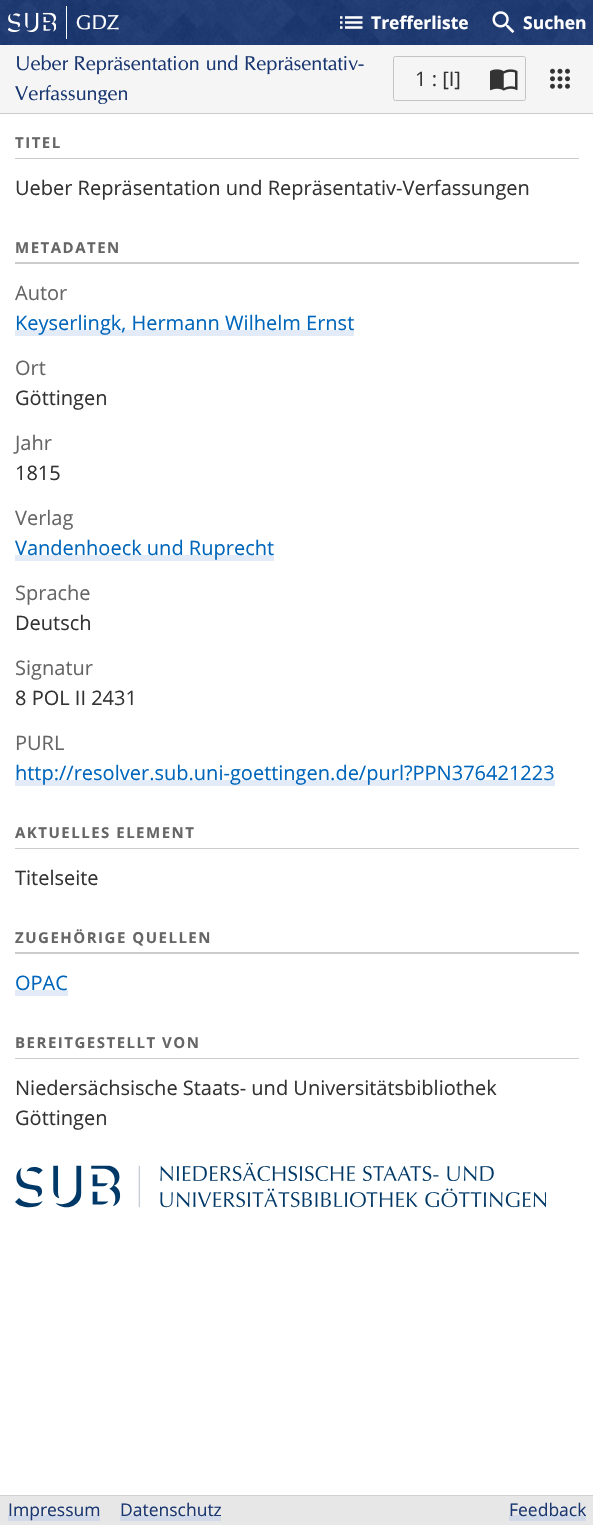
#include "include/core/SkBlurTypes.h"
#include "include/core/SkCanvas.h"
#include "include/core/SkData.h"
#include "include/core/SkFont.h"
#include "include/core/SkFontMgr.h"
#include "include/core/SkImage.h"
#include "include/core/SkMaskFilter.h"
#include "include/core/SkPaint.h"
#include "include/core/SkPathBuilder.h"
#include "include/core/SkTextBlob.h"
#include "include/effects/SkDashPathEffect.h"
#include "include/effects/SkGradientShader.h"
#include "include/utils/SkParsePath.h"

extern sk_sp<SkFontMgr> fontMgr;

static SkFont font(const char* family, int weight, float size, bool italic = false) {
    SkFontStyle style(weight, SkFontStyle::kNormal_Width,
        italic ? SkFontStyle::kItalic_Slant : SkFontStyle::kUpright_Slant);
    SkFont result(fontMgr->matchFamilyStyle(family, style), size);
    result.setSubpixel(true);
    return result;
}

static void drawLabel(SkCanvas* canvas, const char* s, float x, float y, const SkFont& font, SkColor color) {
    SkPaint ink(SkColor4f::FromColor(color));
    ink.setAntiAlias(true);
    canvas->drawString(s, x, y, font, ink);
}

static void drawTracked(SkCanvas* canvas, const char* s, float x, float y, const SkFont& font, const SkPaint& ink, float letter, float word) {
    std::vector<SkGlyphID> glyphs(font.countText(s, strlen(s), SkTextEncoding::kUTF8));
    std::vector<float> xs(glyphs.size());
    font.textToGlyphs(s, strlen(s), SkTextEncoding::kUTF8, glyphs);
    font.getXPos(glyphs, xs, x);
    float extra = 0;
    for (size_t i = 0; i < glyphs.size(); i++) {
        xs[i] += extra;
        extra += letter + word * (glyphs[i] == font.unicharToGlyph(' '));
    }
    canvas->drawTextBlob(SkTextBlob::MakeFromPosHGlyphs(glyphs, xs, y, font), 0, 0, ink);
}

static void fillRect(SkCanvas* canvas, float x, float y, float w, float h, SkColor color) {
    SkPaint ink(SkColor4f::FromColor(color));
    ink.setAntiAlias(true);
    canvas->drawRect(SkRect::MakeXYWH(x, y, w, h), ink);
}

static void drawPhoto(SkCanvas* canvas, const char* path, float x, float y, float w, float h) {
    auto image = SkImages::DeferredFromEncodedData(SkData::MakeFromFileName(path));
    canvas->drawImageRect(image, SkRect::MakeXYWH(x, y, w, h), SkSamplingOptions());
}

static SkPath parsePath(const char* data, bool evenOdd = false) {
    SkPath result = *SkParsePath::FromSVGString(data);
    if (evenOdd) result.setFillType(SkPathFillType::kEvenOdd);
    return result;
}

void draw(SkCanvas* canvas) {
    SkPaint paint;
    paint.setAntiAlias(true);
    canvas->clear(0xFFE7E7E7);
    drawPhoto(canvas, "assets/img1.png", 0, 0, 593, 45);
    drawPhoto(canvas, "assets/img2.png", 8, 12, 48, 21);
    SkFont font1 = font("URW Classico", 400, 20);
    drawLabel(canvas, "GDZ", 76, 29, font1, 0xFFFFFFFF);
    fillRect(canvas, 66, 6, 1, 33, 0xFFFFFFFF);
    drawPhoto(canvas, "assets/img3.png", 340, 16, 23, 13);
    SkFont font2 = font("Open Sans", 700, 17.5f);
    drawLabel(canvas, "Trefferliste", 371, 29, font2, 0xFFFFFFFF);
    drawPhoto(canvas, "assets/img4.png", 492, 11, 23, 22);
    drawLabel(canvas, "Suchen", 523, 29, font2, 0xFFFFFFFF);
    fillRect(canvas, 0, 113, 593, 1382, 0xFFFFFFFF);
    paint.setColor(0x33000000);
    canvas->drawPath(parsePath("M0 112V114H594V46V112Z"), paint);
    fillRect(canvas, 0, 45, 593, 68, 0xFFF5F5F5);
    drawLabel(canvas, "Ueber Repräsentation und Repräsentativ-", 15, 70, font1, 0xFF1A3771);
    drawLabel(canvas, "Verfassungen", 15, 100, font1, 0xFF1A3771);
    paint.setStroke(true);
    paint.setStrokeWidth(1);
    paint.setColor(0xFFC4C4C4);
    canvas->drawRoundRect(SkRect::MakeXYWH(393.5f, 56.5f, 132, 44), 2, 2, paint);
    SkFont font3 = font("Open Sans", 400, 20);
    drawLabel(canvas, "1 : [I]", 415, 86, font3, 0xFF333333);
    drawPhoto(canvas, "assets/img5.png", 490, 69, 28, 22);
    drawPhoto(canvas, "assets/img6.png", 550, 68, 20, 21);
    paint.setStroke(false);
    paint.setColor(0xFFCCCCCC);
    canvas->drawPath(parsePath("M15 158V159H579V129V158Z"), paint);
    SkFont font4 = font("Open Sans", 700, 15);
    paint.setColor(0xFF666666);
    drawTracked(canvas, "TITEL", 15, 148, font4, paint, 1.5f, 0);
    drawLabel(canvas, "Ueber Repräsentation und Repräsentativ-Verfassungen", 15, 195, font3, 0xFF333333);
    paint.setColor(0xFFCCCCCC);
    canvas->drawPath(parsePath("M15 262V264H579V234V262Z"), paint);
    paint.setColor(0xFF666666);
    drawTracked(canvas, "METADATEN", 15, 253, font4, paint, 1.5f, 0);
    drawLabel(canvas, "Autor", 15, 300, font3, 0xFF666666);
    fillRect(canvas, 15, 330, 339, 6, 0xFFE3EAF8);
    drawLabel(canvas, "Keyserlingk, Hermann Wilhelm Ernst", 15, 330, font3, 0xFF0066BB);
    drawLabel(canvas, "Ort", 15, 375, font3, 0xFF666666);
    drawLabel(canvas, "Göttingen", 15, 405, font3, 0xFF333333);
    drawLabel(canvas, "Jahr", 15, 450, font3, 0xFF666666);
    drawLabel(canvas, "1815", 15, 480, font3, 0xFF333333);
    drawLabel(canvas, "Verlag", 15, 525, font3, 0xFF666666);
    fillRect(canvas, 15, 555, 259, 6, 0xFFE3EAF8);
    drawLabel(canvas, "Vandenhoeck und Ruprecht", 15, 555, font3, 0xFF0066BB);
    drawLabel(canvas, "Sprache", 15, 600, font3, 0xFF666666);
    drawLabel(canvas, "Deutsch", 15, 630, font3, 0xFF333333);
    drawLabel(canvas, "Signatur", 15, 675, font3, 0xFF666666);
    drawLabel(canvas, "8 POL II 2431", 15, 705, font3, 0xFF333333);
    drawLabel(canvas, "PURL", 15, 750, font3, 0xFF666666);
    fillRect(canvas, 15, 780, 540, 6, 0xFFE3EAF8);
    drawLabel(canvas, "http://resolver.sub.uni-goettingen.de/purl?PPN376421223", 15, 780, font3, 0xFF0066BB);
    paint.setColor(0xFFCCCCCC);
    canvas->drawPath(parsePath("M15 848V849H579V819V848Z"), paint);
    paint.setColor(0xFF666666);
    drawTracked(canvas, "AKTUELLES ELEMENT", 15, 838, font4, paint, 1.5f, 0);
    drawLabel(canvas, "Titelseite", 15, 885, font3, 0xFF333333);
    paint.setColor(0xFFCCCCCC);
    canvas->drawPath(parsePath("M15 952V954H579V924V952Z"), paint);
    paint.setColor(0xFF666666);
    drawTracked(canvas, "ZUGEHÖRIGE QUELLEN", 15, 943, font4, paint, 1.5f, 0);
    fillRect(canvas, 15, 990, 53, 6, 0xFFE3EAF8);
    drawLabel(canvas, "OPAC", 15, 990, font3, 0xFF0066BB);
    paint.setColor(0xFFCCCCCC);
    canvas->drawPath(parsePath("M15 1058V1059H579V1029V1058Z"), paint);
    paint.setColor(0xFF666666);
    drawTracked(canvas, "BEREITGESTELLT VON", 15, 1048, font4, paint, 1.5f, 0);
    drawLabel(canvas, "Niedersächsische Staats- und Universitätsbibliothek", 15, 1095, font3, 0xFF333333);
    drawLabel(canvas, "Göttingen", 15, 1125, font3, 0xFF333333);
    drawPhoto(canvas, "assets/img7.png", 15, 1163, 531, 45);
    fillRect(canvas, 0, 1495, 593, 1, 0xFFD0D0D0);
    fillRect(canvas, 8, 1515, 92, 6, 0xFFD2D9E8);
    SkFont font5 = font("Open Sans", 400, 17.5f);
    drawLabel(canvas, "Impressum", 8, 1516, font5, 0xFF1A3771);
    fillRect(canvas, 120, 1515, 101, 6, 0xFFD2D9E8);
    drawLabel(canvas, "Datenschutz", 120, 1516, font5, 0xFF1A3771);
    fillRect(canvas, 509, 1515, 77, 6, 0xFFD2D9E8);
    drawLabel(canvas, "Feedback", 509, 1516, font5, 0xFF1A3771);
}
